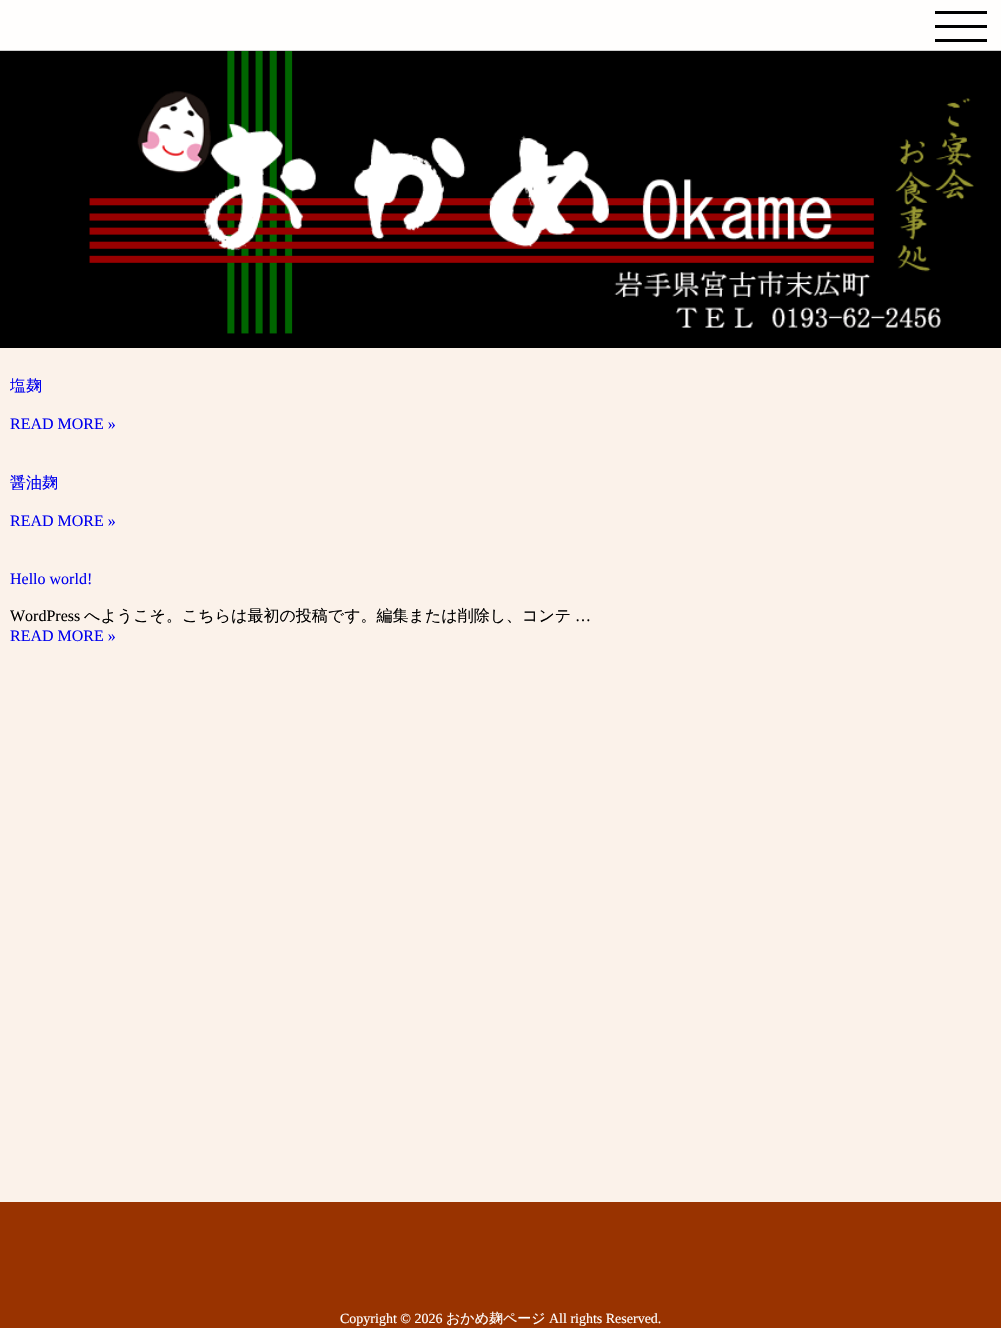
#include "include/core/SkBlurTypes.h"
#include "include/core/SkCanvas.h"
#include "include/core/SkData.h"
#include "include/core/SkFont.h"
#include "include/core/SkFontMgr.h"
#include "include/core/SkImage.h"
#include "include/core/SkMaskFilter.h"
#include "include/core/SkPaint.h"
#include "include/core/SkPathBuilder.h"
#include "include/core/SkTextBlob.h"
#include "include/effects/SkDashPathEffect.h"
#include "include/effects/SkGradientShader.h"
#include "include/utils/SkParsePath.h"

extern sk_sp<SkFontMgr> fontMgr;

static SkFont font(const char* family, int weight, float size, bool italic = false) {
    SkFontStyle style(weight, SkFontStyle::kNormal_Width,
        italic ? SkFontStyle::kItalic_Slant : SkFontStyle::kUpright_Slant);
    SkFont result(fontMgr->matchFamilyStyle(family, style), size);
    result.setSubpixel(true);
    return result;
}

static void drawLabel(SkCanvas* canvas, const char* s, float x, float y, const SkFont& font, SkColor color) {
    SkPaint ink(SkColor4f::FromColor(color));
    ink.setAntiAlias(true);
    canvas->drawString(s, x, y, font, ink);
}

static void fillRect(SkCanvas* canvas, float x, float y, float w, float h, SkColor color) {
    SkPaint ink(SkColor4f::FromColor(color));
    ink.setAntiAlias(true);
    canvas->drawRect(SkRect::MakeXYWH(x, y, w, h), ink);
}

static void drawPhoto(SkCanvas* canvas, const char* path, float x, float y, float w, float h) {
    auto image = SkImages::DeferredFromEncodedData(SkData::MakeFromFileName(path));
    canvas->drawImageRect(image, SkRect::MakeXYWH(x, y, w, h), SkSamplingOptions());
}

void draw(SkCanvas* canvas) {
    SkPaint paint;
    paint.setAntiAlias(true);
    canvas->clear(0xFFFBF2EA);
    fillRect(canvas, 0, 51, 1001, 297, 0xFF000000);
    fillRect(canvas, 0, 0, 1001, 50, 0xE6FFFFFF);
    fillRect(canvas, 0, 50, 1001, 1, 0xFFCCCCCC);
    fillRect(canvas, 935, 11, 52, 3, 0xFF000000);
    fillRect(canvas, 935, 25, 52, 3, 0xFF000000);
    fillRect(canvas, 935, 39, 52, 3, 0xFF000000);
    drawPhoto(canvas, "assets/img1.png", 89, 51, 885, 283);
    SkFont font1 = font("WenQuanYi Zen Hei", 500, 16);
    drawLabel(canvas, "塩麹", 10, 391, font1, 0xFF0000EE);
    SkFont font2 = font("Liberation Serif", 400, 16);
    drawLabel(canvas, "READ MORE »", 10, 429, font2, 0xFF0000EE);
    drawLabel(canvas, "醤油麹", 10, 488, font1, 0xFF0000EE);
    drawLabel(canvas, "READ MORE »", 10, 526, font2, 0xFF0000EE);
    drawLabel(canvas, "Hello world!", 10, 584, font2, 0xFF0000EE);
    drawLabel(canvas, "WordPress", 10, 621, font2, 0xFF000000);
    drawLabel(canvas, "へようこそ。こちらは最初の投稿です。編集または削除し、コンテ", 84, 621, font1, 0xFF000000);
    drawLabel(canvas, "…", 575, 621, font2, 0xFF000000);
    drawLabel(canvas, "READ MORE »", 10, 641, font2, 0xFF0000EE);
    fillRect(canvas, 0, 1202, 1001, 126, 0xFF993300);
    SkFont font3 = font("Liberation Serif", 400, 14);
    drawLabel(canvas, "Copyright © 2026", 340, 1323, font3, 0xFFFFFFFF);
    SkFont font4 = font("WenQuanYi Zen Hei", 500, 14);
    drawLabel(canvas, "おかめ麹ページ", 446, 1323, font4, 0xFFFFFFFF);
    drawLabel(canvas, "All rights Reserved.", 549, 1323, font3, 0xFFFFFFFF);
}
